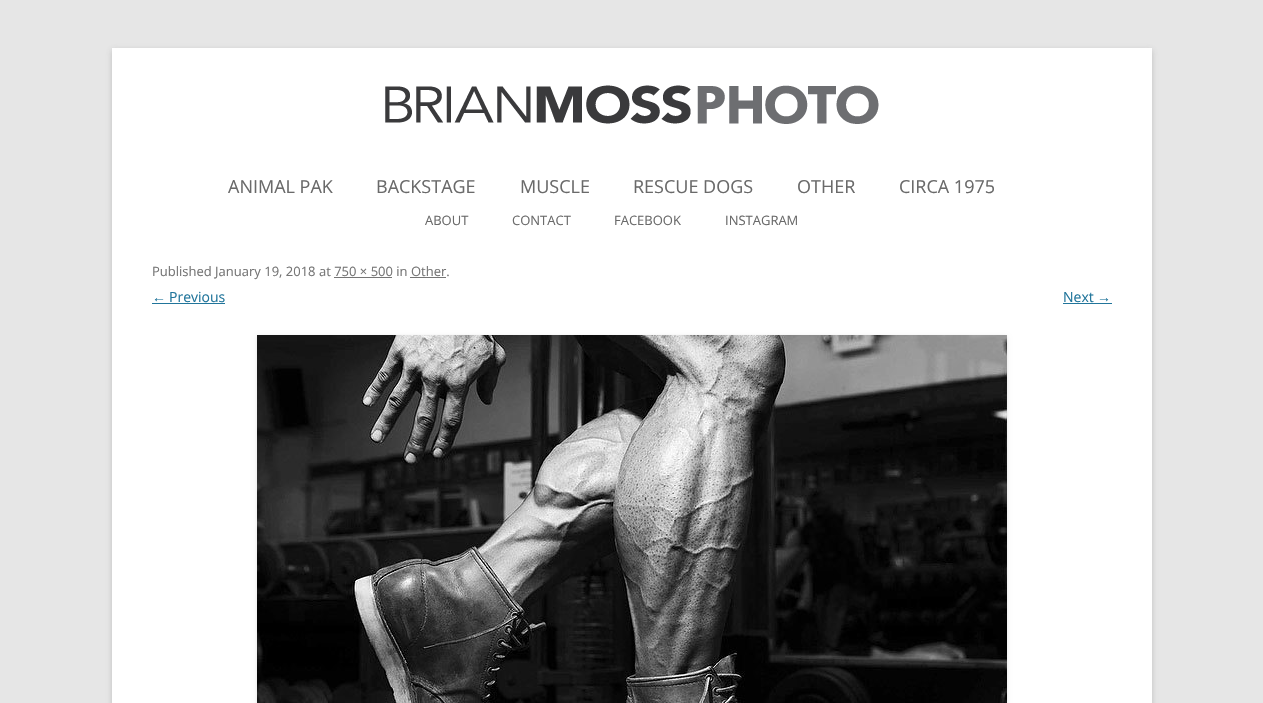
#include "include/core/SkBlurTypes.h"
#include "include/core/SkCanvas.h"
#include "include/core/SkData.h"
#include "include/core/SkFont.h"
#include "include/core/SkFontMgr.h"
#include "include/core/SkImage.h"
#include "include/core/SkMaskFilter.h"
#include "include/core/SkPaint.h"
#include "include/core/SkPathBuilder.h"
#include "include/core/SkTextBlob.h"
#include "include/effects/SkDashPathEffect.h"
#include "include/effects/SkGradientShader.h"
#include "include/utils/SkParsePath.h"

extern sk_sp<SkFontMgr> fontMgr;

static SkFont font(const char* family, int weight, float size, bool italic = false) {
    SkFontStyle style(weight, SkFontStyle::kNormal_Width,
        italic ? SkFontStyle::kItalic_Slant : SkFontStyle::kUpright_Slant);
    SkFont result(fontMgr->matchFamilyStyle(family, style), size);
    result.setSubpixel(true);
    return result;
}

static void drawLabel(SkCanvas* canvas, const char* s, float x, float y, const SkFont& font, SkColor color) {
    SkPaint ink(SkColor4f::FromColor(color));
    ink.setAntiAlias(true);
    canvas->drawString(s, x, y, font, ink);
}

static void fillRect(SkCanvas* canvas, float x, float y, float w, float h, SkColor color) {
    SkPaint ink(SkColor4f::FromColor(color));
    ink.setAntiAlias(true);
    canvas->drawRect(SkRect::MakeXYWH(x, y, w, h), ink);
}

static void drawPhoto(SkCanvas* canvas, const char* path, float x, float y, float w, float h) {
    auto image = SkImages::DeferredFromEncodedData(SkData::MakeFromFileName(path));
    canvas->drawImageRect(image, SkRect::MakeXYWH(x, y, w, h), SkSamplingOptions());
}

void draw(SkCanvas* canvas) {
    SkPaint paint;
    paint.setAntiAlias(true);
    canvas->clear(0xFFE6E6E6);
    paint.setColor(0x4D646464);
    paint.setMaskFilter(SkMaskFilter::MakeBlur(kNormal_SkBlurStyle, 3));
    canvas->drawRect(SkRect::MakeXYWH(112, 50, 1040, 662), paint);
    paint.setMaskFilter(nullptr);
    fillRect(canvas, 112, 48, 1040, 655, 0xFFFFFFFF);
    drawPhoto(canvas, "assets/img1.png", 385, 85, 494, 39);
    SkFont font1 = font("Open Sans", 400, 18);
    drawLabel(canvas, "ANIMAL PAK", 228, 193, font1, 0xFF6A6A6A);
    drawLabel(canvas, "BACKSTAGE", 376, 193, font1, 0xFF6A6A6A);
    drawLabel(canvas, "MUSCLE", 520, 193, font1, 0xFF6A6A6A);
    drawLabel(canvas, "RESCUE DOGS", 633, 193, font1, 0xFF6A6A6A);
    drawLabel(canvas, "OTHER", 797, 193, font1, 0xFF6A6A6A);
    drawLabel(canvas, "CIRCA 1975", 899, 193, font1, 0xFF6A6A6A);
    SkFont font2 = font("Open Sans", 400, 13);
    drawLabel(canvas, "ABOUT", 425, 225, font2, 0xFF6A6A6A);
    drawLabel(canvas, "CONTACT", 512, 225, font2, 0xFF6A6A6A);
    drawLabel(canvas, "FACEBOOK", 614, 225, font2, 0xFF6A6A6A);
    drawLabel(canvas, "INSTAGRAM", 725, 225, font2, 0xFF6A6A6A);
    drawLabel(canvas, "Published January 19, 2018 at 750 × 500 in Other.", 152, 276, font2, 0xFF757575);
    fillRect(canvas, 334, 277, 58, 1, 0xFF757575);
    fillRect(canvas, 410, 277, 36, 1, 0xFF757575);
    SkFont font3 = font("Liberation Sans", 400, 14);
    drawLabel(canvas, "←", 152, 302, font3, 0xFF21759B);
    fillRect(canvas, 152, 303, 73, 1, 0xFF21759B);
    SkFont font4 = font("Open Sans", 400, 14);
    drawLabel(canvas, "Previous", 169, 302, font4, 0xFF21759B);
    drawLabel(canvas, "Next", 1063, 302, font4, 0xFF21759B);
    drawLabel(canvas, "→", 1097, 302, font3, 0xFF21759B);
    fillRect(canvas, 1063, 303, 49, 1, 0xFF21759B);
    paint.setColor(0x1A000000);
    paint.setMaskFilter(SkMaskFilter::MakeBlur(kNormal_SkBlurStyle, 2));
    canvas->drawRect(SkRect::MakeXYWH(257, 336, 750, 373), paint);
    paint.setMaskFilter(nullptr);
    drawPhoto(canvas, "assets/img2.png", 257, 335, 750, 368);
}
